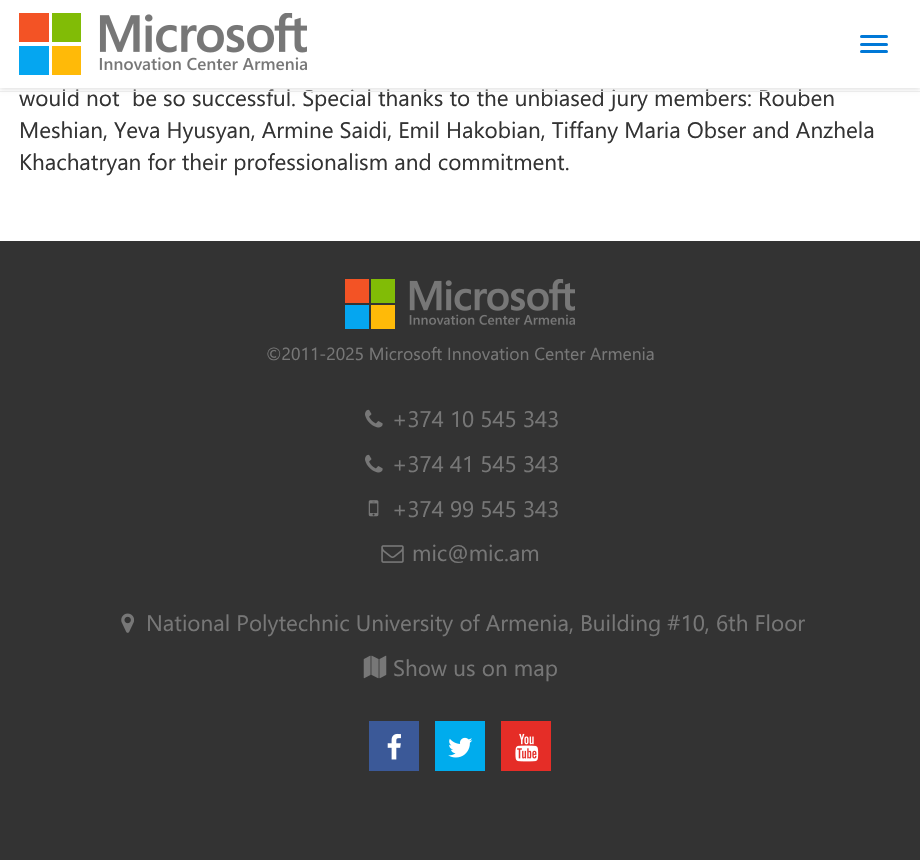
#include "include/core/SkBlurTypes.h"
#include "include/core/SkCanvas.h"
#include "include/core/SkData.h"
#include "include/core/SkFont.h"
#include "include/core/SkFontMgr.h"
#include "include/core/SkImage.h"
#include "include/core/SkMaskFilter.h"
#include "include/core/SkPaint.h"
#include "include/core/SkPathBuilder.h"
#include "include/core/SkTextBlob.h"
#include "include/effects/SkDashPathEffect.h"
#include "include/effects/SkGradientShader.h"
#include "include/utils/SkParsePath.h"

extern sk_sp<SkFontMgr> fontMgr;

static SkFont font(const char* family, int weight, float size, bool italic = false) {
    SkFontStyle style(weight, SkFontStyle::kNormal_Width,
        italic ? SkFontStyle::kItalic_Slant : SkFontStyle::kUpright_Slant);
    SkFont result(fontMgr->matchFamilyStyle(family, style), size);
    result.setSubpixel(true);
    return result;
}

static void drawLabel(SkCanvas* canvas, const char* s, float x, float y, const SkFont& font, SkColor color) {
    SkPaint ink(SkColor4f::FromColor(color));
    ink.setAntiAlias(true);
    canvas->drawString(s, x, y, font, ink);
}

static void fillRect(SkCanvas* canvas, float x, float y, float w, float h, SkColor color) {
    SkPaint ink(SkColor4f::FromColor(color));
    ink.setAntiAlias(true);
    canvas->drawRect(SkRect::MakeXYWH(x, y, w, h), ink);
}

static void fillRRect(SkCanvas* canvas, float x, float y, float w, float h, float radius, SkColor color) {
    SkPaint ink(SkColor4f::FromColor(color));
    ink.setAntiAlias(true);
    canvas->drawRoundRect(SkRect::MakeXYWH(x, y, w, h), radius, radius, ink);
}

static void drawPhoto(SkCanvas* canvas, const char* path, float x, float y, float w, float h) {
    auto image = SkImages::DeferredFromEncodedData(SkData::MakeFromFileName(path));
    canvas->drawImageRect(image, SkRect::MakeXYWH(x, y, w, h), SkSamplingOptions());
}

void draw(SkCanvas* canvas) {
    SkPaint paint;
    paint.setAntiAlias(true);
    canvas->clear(0xFFFFFFFF);
    SkFont font1 = font("Segoe UI", 400, 22.5f);
    drawLabel(canvas, "would not  be so successful. Special thanks to the unbiased jury members: Rouben", 19, 106, font1, 0xFF333333);
    fillRect(canvas, 0, 91, 920, 1, 0xFFEEEEEE);
    paint.setColor(0xFFDDDDDD);
    paint.setMaskFilter(SkMaskFilter::MakeBlur(kNormal_SkBlurStyle, 2.5f));
    canvas->drawRect(SkRect::MakeXYWH(0, 1, 920, 88), paint);
    paint.setMaskFilter(nullptr);
    fillRect(canvas, 0, 0, 920, 88, 0xFFFFFFFF);
    drawPhoto(canvas, "assets/img1.png", 19, 13, 288, 62);
    fillRRect(canvas, 860, 35, 28, 3, 1.5f, 0xFF0078D7);
    fillRRect(canvas, 860, 43, 28, 3, 1.5f, 0xFF0078D7);
    fillRRect(canvas, 860, 50, 28, 3, 1.5f, 0xFF0078D7);
    drawLabel(canvas, "Meshian, Yeva Hyusyan, Armine Saidi, Emil Hakobian, Tiffany Maria Obser and Anzhela", 19, 138, font1, 0xFF333333);
    drawLabel(canvas, "Khachatryan for their professionalism and commitment.", 19, 170, font1, 0xFF333333);
    fillRect(canvas, 0, 241, 920, 619, 0xFF333333);
    drawPhoto(canvas, "assets/img2.png", 345, 279, 230, 50);
    SkFont font2 = font("Segoe UI", 400, 17.5f);
    drawLabel(canvas, "©2011-2025 Microsoft Innovation Center Armenia", 266, 360, font2, 0xFF777777);
    drawPhoto(canvas, "assets/img3.png", 365, 409, 18, 19);
    drawLabel(canvas, "+374 10 545 343", 392, 427, font1, 0xFF777777);
    drawPhoto(canvas, "assets/img3.png", 365, 454, 18, 19);
    drawLabel(canvas, "+374 41 545 343", 392, 472, font1, 0xFF777777);
    drawPhoto(canvas, "assets/img4.png", 368, 500, 11, 17);
    drawLabel(canvas, "+374 99 545 343", 392, 517, font1, 0xFF777777);
    drawPhoto(canvas, "assets/img5.png", 381, 545, 23, 18);
    drawLabel(canvas, "mic@mic.am", 412, 561, font1, 0xFF777777);
    drawPhoto(canvas, "assets/img6.png", 121, 613, 13, 20);
    drawLabel(canvas, "National Polytechnic University of Armenia, Building #10, 6th Floor", 146, 631, font1, 0xFF777777);
    drawPhoto(canvas, "assets/img7.png", 363, 655, 24, 24);
    drawLabel(canvas, "Show us on map", 393, 676, font1, 0xFF777777);
    fillRect(canvas, 369, 721, 50, 50, 0xFF3B5998);
    drawPhoto(canvas, "assets/img8.png", 387, 733, 14, 27);
    fillRect(canvas, 435, 721, 50, 50, 0xFF00ACED);
    drawPhoto(canvas, "assets/img9.png", 448, 737, 25, 21);
    fillRect(canvas, 501, 721, 50, 50, 0xFFE52D27);
    drawPhoto(canvas, "assets/img10.png", 515, 733, 24, 29);
}
